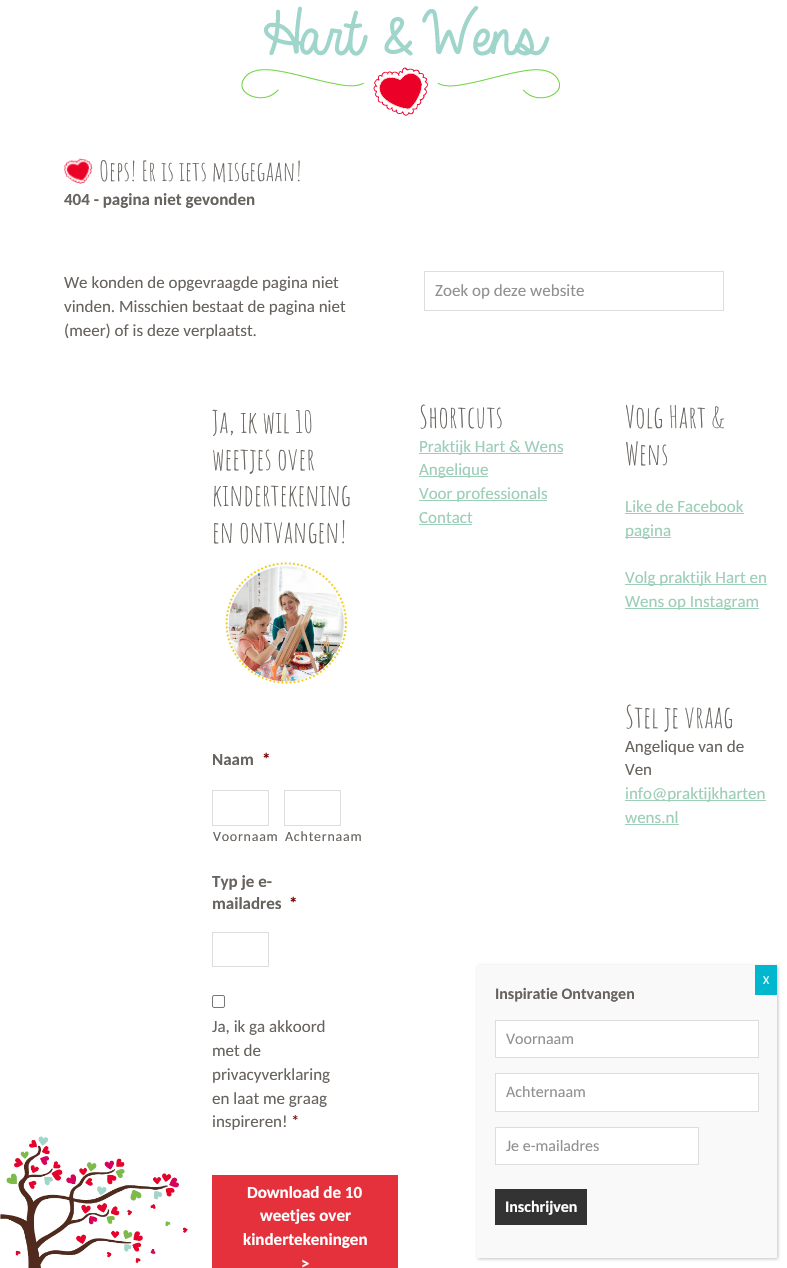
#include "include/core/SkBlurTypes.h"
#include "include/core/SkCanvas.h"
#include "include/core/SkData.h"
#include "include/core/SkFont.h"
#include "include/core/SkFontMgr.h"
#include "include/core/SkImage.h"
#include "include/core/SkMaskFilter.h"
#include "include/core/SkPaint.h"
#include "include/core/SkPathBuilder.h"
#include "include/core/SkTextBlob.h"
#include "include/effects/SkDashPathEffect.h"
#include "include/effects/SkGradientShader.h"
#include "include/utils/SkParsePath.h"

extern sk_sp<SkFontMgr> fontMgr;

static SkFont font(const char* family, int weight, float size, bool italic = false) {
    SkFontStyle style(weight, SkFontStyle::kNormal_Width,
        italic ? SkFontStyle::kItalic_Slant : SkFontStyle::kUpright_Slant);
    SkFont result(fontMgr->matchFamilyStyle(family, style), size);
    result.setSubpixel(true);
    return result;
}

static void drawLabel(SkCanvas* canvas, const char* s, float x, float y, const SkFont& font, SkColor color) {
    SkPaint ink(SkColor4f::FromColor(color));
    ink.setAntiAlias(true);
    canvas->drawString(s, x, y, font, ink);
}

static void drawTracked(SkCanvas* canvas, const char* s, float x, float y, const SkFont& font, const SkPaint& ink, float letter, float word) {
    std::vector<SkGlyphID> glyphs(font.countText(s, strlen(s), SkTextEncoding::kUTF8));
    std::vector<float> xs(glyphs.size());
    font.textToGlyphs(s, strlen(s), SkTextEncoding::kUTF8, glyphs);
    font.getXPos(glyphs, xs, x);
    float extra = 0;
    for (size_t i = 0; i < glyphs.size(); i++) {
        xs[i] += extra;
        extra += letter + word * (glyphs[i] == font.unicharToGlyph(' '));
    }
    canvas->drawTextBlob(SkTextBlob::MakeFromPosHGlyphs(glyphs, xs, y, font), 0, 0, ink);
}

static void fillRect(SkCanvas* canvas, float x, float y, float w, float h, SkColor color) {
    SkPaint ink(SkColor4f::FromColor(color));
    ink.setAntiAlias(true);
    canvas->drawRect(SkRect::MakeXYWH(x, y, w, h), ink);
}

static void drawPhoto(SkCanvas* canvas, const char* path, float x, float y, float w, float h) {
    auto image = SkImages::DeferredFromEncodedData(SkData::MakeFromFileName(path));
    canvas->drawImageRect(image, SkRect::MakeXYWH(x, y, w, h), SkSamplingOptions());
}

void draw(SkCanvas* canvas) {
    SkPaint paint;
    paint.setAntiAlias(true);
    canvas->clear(0xFFFFFFFF);
    drawPhoto(canvas, "assets/img1.png", 241, 6, 319, 110);
    drawPhoto(canvas, "assets/img2.png", 64, 158, 29, 26);
    SkFont font1 = font("Amatic SC", 400, 27.25f);
    drawLabel(canvas, "Oeps! Er is iets misgegaan!", 99, 181, font1, 0xFF67635F);
    SkFont font2 = font("Carlito", 700, 17);
    drawLabel(canvas, "404 - pagina niet gevonden", 64, 205, font2, 0xFF67635F);
    SkFont font3 = font("Carlito", 400, 17);
    drawLabel(canvas, "We konden de opgevraagde pagina niet", 64, 288, font3, 0xFF67635F);
    drawLabel(canvas, "vinden. Misschien bestaat de pagina niet", 64, 312, font3, 0xFF67635F);
    drawLabel(canvas, "(meer) of is deze verplaatst.", 64, 336, font3, 0xFF67635F);
    paint.setStroke(true);
    paint.setStrokeWidth(1);
    paint.setColor(0xFFDDDDDD);
    canvas->drawRect(SkRect::MakeXYWH(424.5f, 271.5f, 299, 39), paint);
    drawLabel(canvas, "Zoek op deze website", 435, 296, font3, 0xFF919191);
    drawPhoto(canvas, "assets/img3.png", 0, 1136, 188, 132);
    SkFont font4 = font("Amatic SC", 400, 30.5f);
    drawLabel(canvas, "Ja, ik wil 10", 212, 433, font4, 0xFF67635F);
    drawLabel(canvas, "weetjes over", 212, 470, font4, 0xFF67635F);
    drawLabel(canvas, "kindertekening", 212, 506, font4, 0xFF67635F);
    drawLabel(canvas, "en ontvangen!", 212, 543, font4, 0xFF67635F);
    drawPhoto(canvas, "assets/img4.png", 225, 561, 123, 123);
    drawLabel(canvas, "Naam", 212, 765, font2, 0xFF67635F);
    drawLabel(canvas, "*", 262, 765, font2, 0xFF790000);
    canvas->drawRect(SkRect::MakeXYWH(212.5f, 790.5f, 56, 35), paint);
    SkFont font5 = font("Carlito", 400, 14);
    paint.setStroke(false);
    paint.setColor(0xFF67635F);
    drawTracked(canvas, "Voornaam", 213, 841, font5, paint, 0.75f, 0);
    paint.setStroke(true);
    paint.setColor(0xFFDDDDDD);
    canvas->drawRect(SkRect::MakeXYWH(284.5f, 790.5f, 56, 35), paint);
    paint.setStroke(false);
    paint.setColor(0xFF67635F);
    drawTracked(canvas, "Achternaam", 285, 841, font5, paint, 0.75f, 0);
    drawLabel(canvas, "Typ je e-", 212, 887, font2, 0xFF67635F);
    drawLabel(canvas, "mailadres", 212, 909, font2, 0xFF67635F);
    drawLabel(canvas, "*", 289, 909, font2, 0xFF790000);
    paint.setStroke(true);
    paint.setColor(0xFFDDDDDD);
    canvas->drawRect(SkRect::MakeXYWH(212.5f, 932.5f, 56, 34), paint);
    paint.setColor(0xFF767676);
    canvas->drawRoundRect(SkRect::MakeXYWH(212.5f, 995.5f, 12, 12), 1.5f, 1.5f, paint);
    drawLabel(canvas, "Ja, ik ga akkoord", 212, 1032, font3, 0xFF67635F);
    drawLabel(canvas, "met de", 212, 1056, font3, 0xFF67635F);
    drawLabel(canvas, "privacyverklaring", 212, 1080, font3, 0xFF67635F);
    drawLabel(canvas, "en laat me graag", 212, 1104, font3, 0xFF67635F);
    drawLabel(canvas, "inspireren!", 212, 1127, font3, 0xFF67635F);
    drawLabel(canvas, "*", 291, 1127, font3, 0xFF790000);
    fillRect(canvas, 212, 1175, 186, 93, 0xFFE5313C);
    drawLabel(canvas, "Download de 10", 247, 1198, font2, 0xFFFFFFFF);
    drawLabel(canvas, "weetjes over", 260, 1221, font2, 0xFFFFFFFF);
    drawLabel(canvas, "kindertekeningen", 243, 1245, font2, 0xFFFFFFFF);
    drawLabel(canvas, ">", 301, 1269, font2, 0xFFFFFFFF);
    drawLabel(canvas, "Shortcuts", 419, 428, font4, 0xFF67635F);
    fillRect(canvas, 419, 453, 144, 1, 0xFF9DCEB8);
    drawLabel(canvas, "Praktijk Hart & Wens", 419, 452, font3, 0xFF9DCEB8);
    fillRect(canvas, 419, 476, 69, 1, 0xFF9DCEB8);
    drawLabel(canvas, "Angelique", 419, 475, font3, 0xFF9DCEB8);
    fillRect(canvas, 419, 500, 128, 1, 0xFF9DCEB8);
    drawLabel(canvas, "Voor professionals", 419, 499, font3, 0xFF9DCEB8);
    drawLabel(canvas, "Contact", 419, 523, font3, 0xFF9DCEB8);
    fillRect(canvas, 419, 524, 53, 1, 0xFF9DCEB8);
    drawLabel(canvas, "Volg Hart &", 625, 428, font4, 0xFF67635F);
    drawLabel(canvas, "Wens", 625, 465, font4, 0xFF67635F);
    drawLabel(canvas, "Like de Facebook", 625, 512, font3, 0xFF9DCEB8);
    fillRect(canvas, 625, 513, 119, 1, 0xFF9DCEB8);
    fillRect(canvas, 625, 537, 46, 1, 0xFF9DCEB8);
    drawLabel(canvas, "pagina", 625, 536, font3, 0xFF9DCEB8);
    fillRect(canvas, 625, 584, 142, 1, 0xFF9DCEB8);
    drawLabel(canvas, "Volg praktijk Hart en", 625, 583, font3, 0xFF9DCEB8);
    fillRect(canvas, 625, 608, 134, 1, 0xFF9DCEB8);
    drawLabel(canvas, "Wens op Instagram", 625, 607, font3, 0xFF9DCEB8);
    drawLabel(canvas, "Stel je vraag", 625, 728, font4, 0xFF67635F);
    drawLabel(canvas, "Angelique van de", 625, 752, font3, 0xFF67635F);
    drawLabel(canvas, "Ven", 625, 775, font3, 0xFF67635F);
    fillRect(canvas, 625, 800, 141, 1, 0xFF9DCEB8);
    drawLabel(canvas, "info@praktijkharten", 625, 799, font3, 0xFF9DCEB8);
    drawLabel(canvas, "wens.nl", 625, 823, font3, 0xFF9DCEB8);
    fillRect(canvas, 625, 824, 54, 1, 0xFF9DCEB8);
    paint.setStroke(false);
    paint.setColor(0x3B020202);
    paint.setMaskFilter(SkMaskFilter::MakeBlur(kNormal_SkBlurStyle, 1.5f));
    canvas->drawRect(SkRect::MakeXYWH(478, 966, 300, 293), paint);
    paint.setMaskFilter(nullptr);
    fillRect(canvas, 477, 965, 300, 293, 0xFFF9F9F9);
    fillRect(canvas, 755, 965, 22, 30, 0xFF00B7CD);
    SkFont font6 = font("Carlito", 400, 12);
    drawLabel(canvas, "X", 763, 984, font6, 0xFFFFFFFF);
    SkFont font7 = font("Carlito", 700, 16);
    drawLabel(canvas, "Inspiratie Ontvangen", 495, 999, font7, 0xFF67635F);
    paint.setColor(0xFFFFFFFF);
    canvas->drawRect(SkRect::MakeXYWH(495.5f, 1020.5f, 263, 37), paint);
    paint.setStroke(true);
    paint.setColor(0xFFDDDDDD);
    canvas->drawRect(SkRect::MakeXYWH(495.5f, 1020.5f, 263, 37), paint);
    SkFont font8 = font("Carlito", 400, 16);
    drawLabel(canvas, "Voornaam", 506, 1044, font8, 0xFF919191);
    paint.setStroke(false);
    paint.setColor(0xFFFFFFFF);
    canvas->drawRect(SkRect::MakeXYWH(495.5f, 1073.5f, 263, 38), paint);
    paint.setStroke(true);
    paint.setColor(0xFFDDDDDD);
    canvas->drawRect(SkRect::MakeXYWH(495.5f, 1073.5f, 263, 38), paint);
    drawLabel(canvas, "Achternaam", 506, 1097, font8, 0xFF919191);
    paint.setStroke(false);
    paint.setColor(0xFFFFFFFF);
    canvas->drawRect(SkRect::MakeXYWH(495.5f, 1127.5f, 203, 37), paint);
    paint.setStroke(true);
    paint.setColor(0xFFDDDDDD);
    canvas->drawRect(SkRect::MakeXYWH(495.5f, 1127.5f, 203, 37), paint);
    drawLabel(canvas, "Je e-mailadres", 506, 1151, font8, 0xFF919191);
    fillRect(canvas, 495, 1189, 92, 36, 0xFF333333);
    drawLabel(canvas, "Inschrijven", 505, 1212, font7, 0xFFFFFFFF);
}
